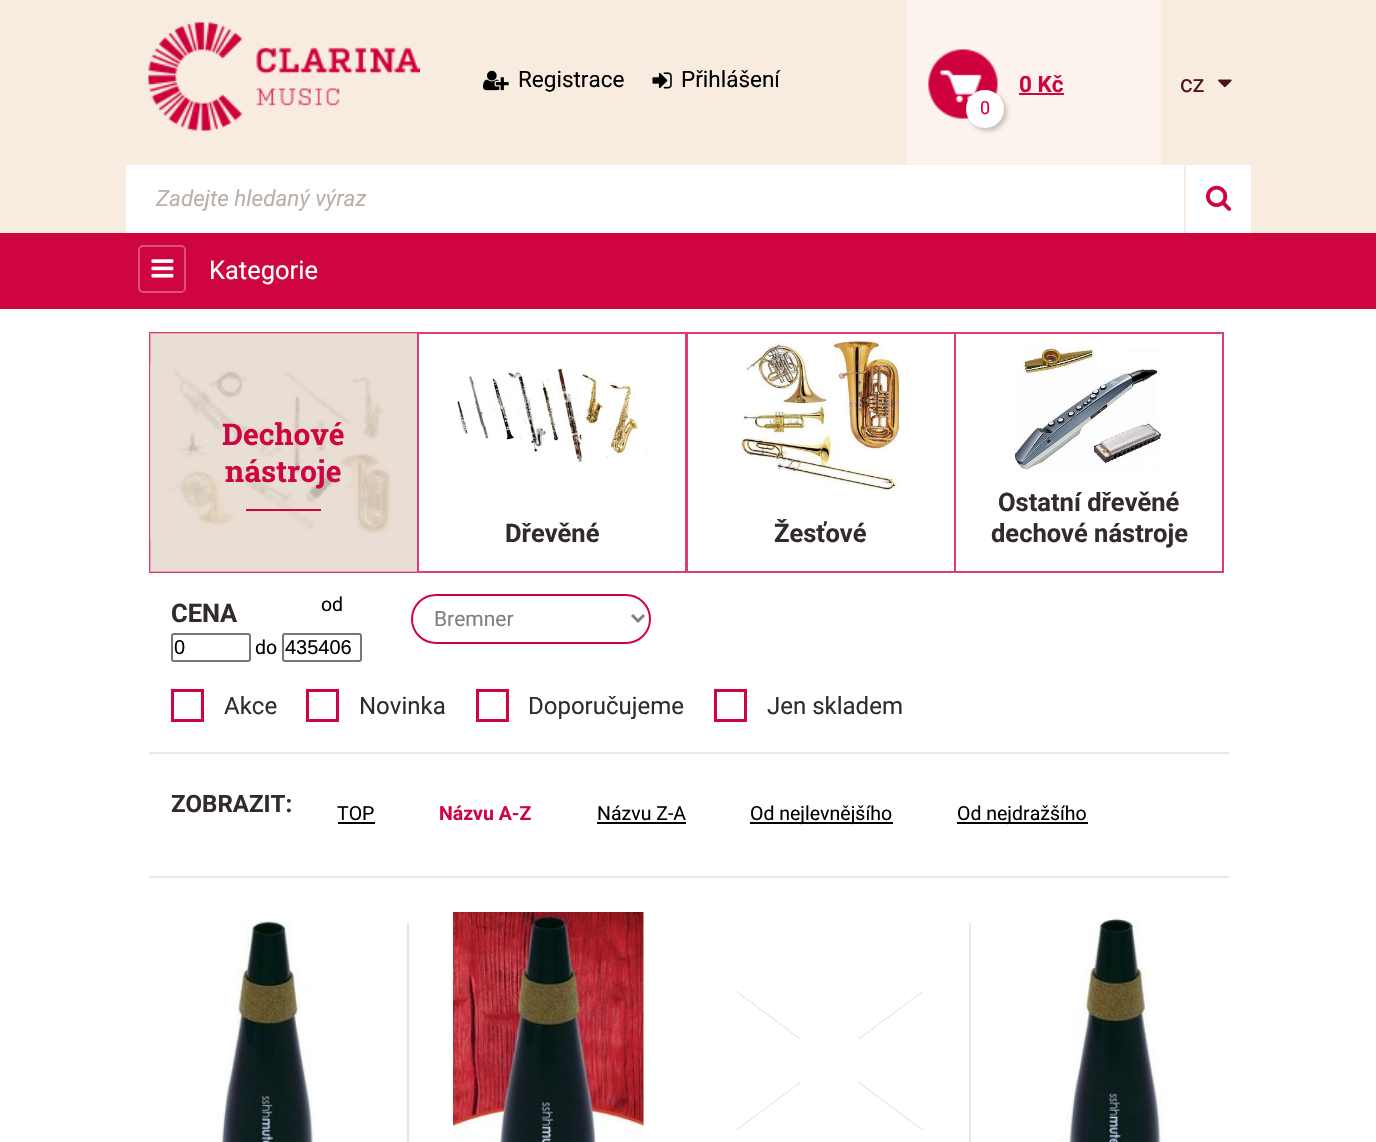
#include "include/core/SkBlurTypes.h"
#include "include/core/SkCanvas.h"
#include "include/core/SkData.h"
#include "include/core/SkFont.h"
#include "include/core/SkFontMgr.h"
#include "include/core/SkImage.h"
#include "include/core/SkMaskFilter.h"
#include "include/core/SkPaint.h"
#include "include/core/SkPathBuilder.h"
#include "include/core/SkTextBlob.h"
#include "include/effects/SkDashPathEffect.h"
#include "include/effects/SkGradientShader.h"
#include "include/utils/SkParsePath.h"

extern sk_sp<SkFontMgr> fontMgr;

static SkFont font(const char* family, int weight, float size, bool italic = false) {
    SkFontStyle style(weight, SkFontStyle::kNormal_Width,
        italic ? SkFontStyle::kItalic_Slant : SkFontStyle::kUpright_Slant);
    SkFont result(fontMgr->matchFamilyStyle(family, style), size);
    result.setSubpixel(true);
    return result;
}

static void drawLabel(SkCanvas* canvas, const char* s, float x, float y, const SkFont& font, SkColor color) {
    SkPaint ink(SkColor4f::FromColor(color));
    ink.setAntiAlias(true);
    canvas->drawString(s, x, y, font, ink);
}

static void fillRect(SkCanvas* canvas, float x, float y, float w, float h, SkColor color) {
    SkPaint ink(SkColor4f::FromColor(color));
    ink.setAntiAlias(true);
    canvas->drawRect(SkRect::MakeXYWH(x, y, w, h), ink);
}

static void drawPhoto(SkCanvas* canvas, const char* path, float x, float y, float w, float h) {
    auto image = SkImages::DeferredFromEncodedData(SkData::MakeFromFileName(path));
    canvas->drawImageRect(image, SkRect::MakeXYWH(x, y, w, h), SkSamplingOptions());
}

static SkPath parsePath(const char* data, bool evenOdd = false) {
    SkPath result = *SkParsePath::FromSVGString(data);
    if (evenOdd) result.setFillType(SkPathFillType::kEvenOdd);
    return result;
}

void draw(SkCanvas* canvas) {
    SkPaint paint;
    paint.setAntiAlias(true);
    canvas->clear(0xFFF8EBE0);
    drawPhoto(canvas, "assets/img1.png", 148, 22, 272, 109);
    drawPhoto(canvas, "assets/img2.png", 483, 70, 26, 21);
    SkFont font1 = font("Roboto", 400, 22.5f);
    drawLabel(canvas, "Registrace", 518, 87, font1, 0xFF000000);
    drawPhoto(canvas, "assets/img3.png", 652, 72, 20, 17);
    drawLabel(canvas, "Přihlášení", 681, 87, font1, 0xFF000000);
    fillRect(canvas, 906, 0, 255, 165, 0xFFFBF3EC);
    drawPhoto(canvas, "assets/img4.png", 928, 49, 70, 70);
    SkFont font2 = font("Roboto", 700, 22.5f);
    drawLabel(canvas, "0 Kč", 1019, 92, font2, 0xFFCE053F);
    fillRect(canvas, 1019, 93, 45, 2, 0xFFCE053F);
    paint.setColor(0x33000000);
    paint.setMaskFilter(SkMaskFilter::MakeBlur(kNormal_SkBlurStyle, 2));
    canvas->drawRoundRect(SkRect::MakeXYWH(969, 93, 38, 38), 19, 19, paint);
    paint.setMaskFilter(nullptr);
    paint.setColor(0xFFFFFFFF);
    canvas->drawCircle(985, 109, 19, paint);
    SkFont font3 = font("Roboto", 400, 18);
    drawLabel(canvas, "0", 980, 114, font3, 0xFFCE053F);
    SkFont font4 = font("Roboto", 400, 24);
    drawLabel(canvas, "cz", 1180, 92, font4, 0xFF4E1119);
    drawPhoto(canvas, "assets/img5.png", 1218, 79, 14, 9);
    fillRect(canvas, 126, 165, 1125, 68, 0xFFFFFFFF);
    SkFont font5 = font("Roboto", 400, 22.5f, true);
    drawLabel(canvas, "Zadejte hledaný výraz", 156, 206, font5, 0xFFB9B1AB);
    fillRect(canvas, 1184, 165, 2, 68, 0xFFF8EBE0);
    drawPhoto(canvas, "assets/img6.png", 1206, 185, 25, 26);
    fillRect(canvas, 0, 233, 1376, 76, 0xFFCE053F);
    paint.setStroke(true);
    paint.setStrokeWidth(2);
    paint.setColor(0xFFDD5079);
    canvas->drawRoundRect(SkRect::MakeXYWH(139, 246, 46, 46), 4, 4, paint);
    drawPhoto(canvas, "assets/img7.png", 151, 259, 23, 19);
    SkFont font6 = font("Roboto", 400, 25.5f);
    drawLabel(canvas, "Kategorie", 209, 279, font6, 0xFFFFFFFF);
    fillRect(canvas, 0, 309, 1376, 833, 0xFFFFFFFF);
    paint.setColor(0xFFDC3F6C);
    canvas->drawRect(SkRect::MakeXYWH(150, 333, 268, 239), paint);
    drawPhoto(canvas, "assets/img8.png", 150, 363, 250, 177);
    fillRect(canvas, 150, 333, 267, 239, 0xB3DFD0C3);
    SkFont font7 = font("Roboto Slab", 700, 30);
    drawLabel(canvas, "Dechové", 222, 445, font7, 0xFFCE053F);
    drawLabel(canvas, "nástroje", 225, 482, font7, 0xFFCE053F);
    fillRect(canvas, 246, 509, 75, 2, 0xFFCE053F);
    canvas->drawRect(SkRect::MakeXYWH(418, 333, 268, 239), paint);
    drawPhoto(canvas, "assets/img9.png", 457, 366, 192, 97);
    SkFont font8 = font("Roboto", 700, 25.5f);
    drawLabel(canvas, "Dřevěné", 505, 542, font8, 0xFF322B2C);
    canvas->drawRect(SkRect::MakeXYWH(687, 333, 268, 239), paint);
    drawPhoto(canvas, "assets/img10.png", 741, 340, 159, 151);
    drawLabel(canvas, "Žesťové", 774, 542, font8, 0xFF322B2C);
    canvas->drawRect(SkRect::MakeXYWH(955, 333, 268, 239), paint);
    drawPhoto(canvas, "assets/img11.png", 1014, 347, 148, 123);
    drawLabel(canvas, "Ostatní dřevěné", 998, 511, font8, 0xFF322B2C);
    drawLabel(canvas, "dechové nástroje", 991, 542, font8, 0xFF322B2C);
    SkFont font9 = font("Roboto", 400, 19.5f);
    drawLabel(canvas, "od", 321, 611, font9, 0xFF000000);
    paint.setColor(0xFF767676);
    canvas->drawRoundRect(SkRect::MakeXYWH(172, 634, 78, 27), 2, 2, paint);
    SkFont font10 = font("Liberation Sans", 400, 20);
    drawLabel(canvas, "0", 174, 654, font10, 0xFF000000);
    drawLabel(canvas, "do", 255, 654, font9, 0xFF000000);
    canvas->drawRoundRect(SkRect::MakeXYWH(283, 634, 78, 27), 2, 2, paint);
    drawLabel(canvas, "435406", 285, 654, font10, 0xFF000000);
    drawLabel(canvas, "CENA", 171, 622, font8, 0xFF322B2C);
    paint.setColor(0xFFCE053F);
    canvas->drawRoundRect(SkRect::MakeXYWH(412, 595, 238, 48), 24, 24, paint);
    paint.setStrokeWidth(3);
    paint.setColor(0xFF808080);
    canvas->drawPath(parsePath("M632 615L638 621L644 615"), paint);
    SkFont font11 = font("Roboto", 400, 21);
    drawLabel(canvas, "Bremner", 434, 626, font11, 0xFF808080);
    paint.setColor(0xFFCE053F);
    canvas->drawRect(SkRect::MakeXYWH(172.5f, 690.5f, 30, 30), paint);
    drawLabel(canvas, "Akce", 224, 714, font4, 0xFF322B2C);
    canvas->drawRect(SkRect::MakeXYWH(307.5f, 690.5f, 30, 30), paint);
    drawLabel(canvas, "Novinka", 359, 714, font4, 0xFF322B2C);
    canvas->drawRect(SkRect::MakeXYWH(477.5f, 690.5f, 30, 30), paint);
    drawLabel(canvas, "Doporučujeme", 528, 714, font4, 0xFF322B2C);
    canvas->drawRect(SkRect::MakeXYWH(715.5f, 690.5f, 30, 30), paint);
    drawLabel(canvas, "Jen skladem", 767, 714, font4, 0xFF322B2C);
    fillRect(canvas, 149, 752, 1080, 2, 0xFFEDE7E7);
    fillRect(canvas, 149, 876, 1080, 2, 0xFFEDE7E7);
    SkFont font12 = font("Roboto", 700, 24);
    drawLabel(canvas, "ZOBRAZIT:", 171, 812, font12, 0xFF322B2C);
    drawLabel(canvas, "TOP", 337, 820, font9, 0xFF000000);
    fillRect(canvas, 338, 822, 37, 2, 0xFF000000);
    SkFont font13 = font("Roboto", 700, 19.5f);
    drawLabel(canvas, "Názvu A-Z", 439, 820, font13, 0xFFCE053F);
    drawLabel(canvas, "Názvu Z-A", 597, 820, font9, 0xFF000000);
    fillRect(canvas, 597, 822, 89, 2, 0xFF000000);
    fillRect(canvas, 750, 822, 143, 2, 0xFF000000);
    drawLabel(canvas, "Od nejlevnějšího", 750, 820, font9, 0xFF000000);
    fillRect(canvas, 957, 822, 131, 2, 0xFF000000);
    drawLabel(canvas, "Od nejdražšího", 957, 820, font9, 0xFF000000);
    drawPhoto(canvas, "assets/img12.png", 216, 920, 101, 222);
    fillRect(canvas, 407, 923, 2, 219, 0xFFEDE7E7);
    drawPhoto(canvas, "assets/img13.png", 453, 912, 191, 230);
    drawPhoto(canvas, "assets/img14.png", 736, 991, 187, 140);
    fillRect(canvas, 969, 923, 2, 219, 0xFFEDE7E7);
    drawPhoto(canvas, "assets/img15.png", 1055, 912, 111, 230);
}
